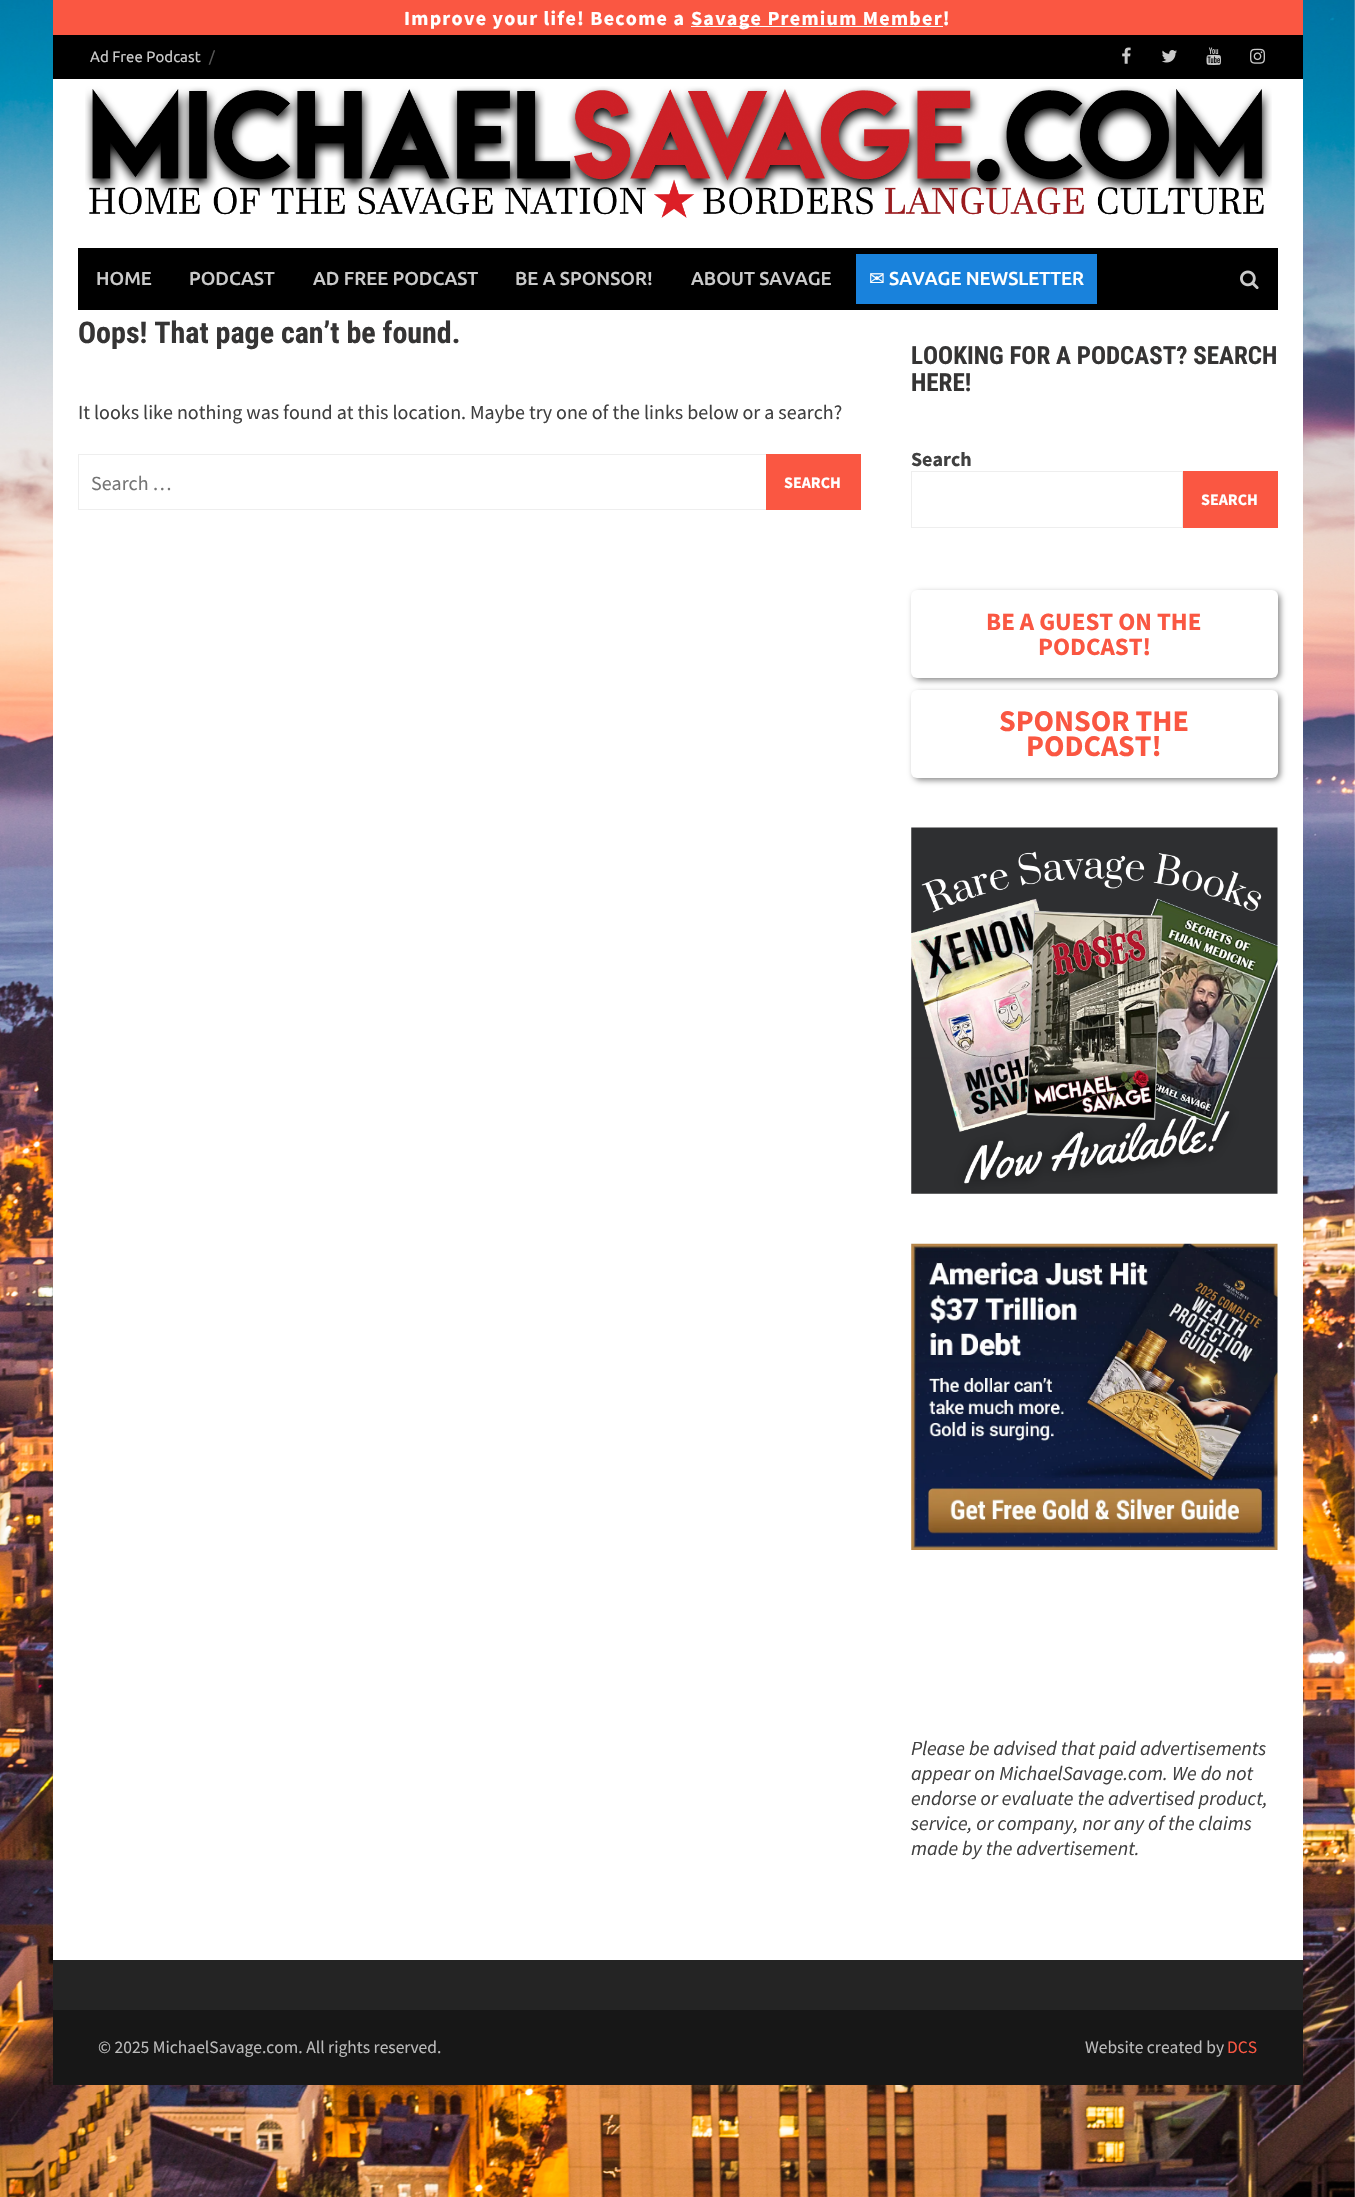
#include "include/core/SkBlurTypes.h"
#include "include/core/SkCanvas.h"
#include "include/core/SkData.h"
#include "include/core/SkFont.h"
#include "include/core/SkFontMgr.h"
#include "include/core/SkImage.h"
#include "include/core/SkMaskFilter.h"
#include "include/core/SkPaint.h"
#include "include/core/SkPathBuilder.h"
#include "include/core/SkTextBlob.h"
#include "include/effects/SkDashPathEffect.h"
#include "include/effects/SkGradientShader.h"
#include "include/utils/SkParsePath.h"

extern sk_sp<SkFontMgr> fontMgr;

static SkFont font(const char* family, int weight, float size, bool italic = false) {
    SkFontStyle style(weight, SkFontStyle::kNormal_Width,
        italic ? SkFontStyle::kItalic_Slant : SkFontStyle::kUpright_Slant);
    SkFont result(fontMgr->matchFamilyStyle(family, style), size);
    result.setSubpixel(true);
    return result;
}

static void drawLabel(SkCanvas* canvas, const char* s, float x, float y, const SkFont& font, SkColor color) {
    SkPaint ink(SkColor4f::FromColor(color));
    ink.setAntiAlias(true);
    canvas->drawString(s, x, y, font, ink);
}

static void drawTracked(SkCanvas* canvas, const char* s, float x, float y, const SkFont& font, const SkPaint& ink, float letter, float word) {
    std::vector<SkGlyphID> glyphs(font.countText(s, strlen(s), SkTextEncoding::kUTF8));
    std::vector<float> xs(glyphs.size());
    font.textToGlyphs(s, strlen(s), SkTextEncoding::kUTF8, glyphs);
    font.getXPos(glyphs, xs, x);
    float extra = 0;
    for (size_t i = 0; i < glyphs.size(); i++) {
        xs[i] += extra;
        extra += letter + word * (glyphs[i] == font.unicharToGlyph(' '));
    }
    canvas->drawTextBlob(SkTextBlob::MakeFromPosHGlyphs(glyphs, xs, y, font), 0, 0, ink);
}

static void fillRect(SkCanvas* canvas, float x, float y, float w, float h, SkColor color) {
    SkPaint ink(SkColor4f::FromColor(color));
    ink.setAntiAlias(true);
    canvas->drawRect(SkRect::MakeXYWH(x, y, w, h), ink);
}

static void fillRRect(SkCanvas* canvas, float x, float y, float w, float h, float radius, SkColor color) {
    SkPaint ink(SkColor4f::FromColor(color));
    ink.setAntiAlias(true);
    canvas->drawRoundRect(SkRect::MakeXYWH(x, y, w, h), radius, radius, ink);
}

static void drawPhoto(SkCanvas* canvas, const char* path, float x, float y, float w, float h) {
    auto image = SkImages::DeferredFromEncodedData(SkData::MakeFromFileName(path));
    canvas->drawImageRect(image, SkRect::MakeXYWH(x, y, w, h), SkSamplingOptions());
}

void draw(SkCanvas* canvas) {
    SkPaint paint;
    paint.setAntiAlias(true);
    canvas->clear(0xFFFFFFFF);
    drawPhoto(canvas, "assets/img1.png", 0, 0, 1355, 2197);
    fillRect(canvas, 53, 0, 1250, 35, 0xFFFA5742);
    SkFont font1 = font("Source Sans Pro", 700, 20);
    paint.setColor(0xFFFFFFFF);
    drawTracked(canvas, "Improve your life! Become a", 404, 25, font1, paint, 1.25f, 0);
    fillRect(canvas, 691, 26, 252, 1, 0xFFFFFFFF);
    drawTracked(canvas, "Savage Premium Member!", 691, 25, font1, paint, 1.25f, 0);
    fillRect(canvas, 53, 79, 1250, 1881, 0xFFFFFFFF);
    fillRect(canvas, 53, 35, 1250, 44, 0xFF000000);
    SkFont font2 = font("Ubuntu", 400, 15);
    drawLabel(canvas, "Ad Free Podcast", 90, 62, font2, 0xFFCACACA);
    drawLabel(canvas, "/", 209, 62, font2, 0xFF555555);
    drawPhoto(canvas, "assets/img2.png", 1122, 47, 9, 17);
    drawPhoto(canvas, "assets/img3.png", 1161, 50, 16, 13);
    drawPhoto(canvas, "assets/img4.png", 1206, 47, 15, 18);
    drawPhoto(canvas, "assets/img5.png", 1250, 48, 15, 16);
    drawPhoto(canvas, "assets/img6.png", 85, 86, 1187, 132);
    fillRect(canvas, 78, 248, 1200, 62, 0xFF000000);
    SkFont font3 = font("Ubuntu", 500, 18.75f);
    drawLabel(canvas, "HOME", 96, 285, font3, 0xFFCACACA);
    drawLabel(canvas, "PODCAST", 189, 285, font3, 0xFFCACACA);
    drawLabel(canvas, "AD FREE PODCAST", 313, 285, font3, 0xFFCACACA);
    drawLabel(canvas, "BE A SPONSOR!", 515, 285, font3, 0xFFCACACA);
    drawLabel(canvas, "ABOUT SAVAGE", 691, 285, font3, 0xFFCACACA);
    fillRect(canvas, 856, 254, 241, 50, 0xFF1982DC);
    SkFont font4 = font("DejaVu Sans", 400, 18.75f);
    drawLabel(canvas, "✉", 869, 285, font4, 0xFFFFFFFF);
    drawLabel(canvas, "SAVAGE NEWSLETTER", 889, 285, font3, 0xFFFFFFFF);
    drawPhoto(canvas, "assets/img7.png", 1240, 270, 19, 20);
    SkFont font5 = font("Roboto Condensed", 700, 30);
    drawLabel(canvas, "Oops! That page can’t be found.", 78, 343, font5, 0xFF353434);
    SkFont font6 = font("Source Sans Pro", 400, 20);
    drawLabel(canvas, "It looks like nothing was found at this location. Maybe try one of the links below or a search?", 78, 419, font6, 0xFF404040);
    paint.setStroke(true);
    paint.setStrokeWidth(1);
    paint.setColor(0xFFEEEEEE);
    canvas->drawRect(SkRect::MakeXYWH(78.5f, 454.5f, 782, 55), paint);
    drawLabel(canvas, "Search …", 91, 490, font6, 0xFF757575);
    fillRect(canvas, 766, 454, 95, 56, 0xFFFA5742);
    SkFont font7 = font("Source Sans Pro", 700, 16);
    drawLabel(canvas, "SEARCH", 784, 488, font7, 0xFFFFFFFF);
    SkFont font8 = font("Roboto Condensed", 700, 25);
    drawLabel(canvas, "LOOKING FOR A PODCAST? SEARCH", 911, 364, font8, 0xFF353434);
    drawLabel(canvas, "HERE!", 911, 391, font8, 0xFF353434);
    drawLabel(canvas, "Search", 911, 466, font1, 0xFF404040);
    canvas->drawRect(SkRect::MakeXYWH(911.5f, 471.5f, 271, 56), paint);
    fillRect(canvas, 1183, 471, 95, 57, 0xFFFA5742);
    drawLabel(canvas, "SEARCH", 1201, 505, font7, 0xFFFFFFFF);
    paint.setStroke(false);
    paint.setColor(0xFF808080);
    paint.setMaskFilter(SkMaskFilter::MakeBlur(kNormal_SkBlurStyle, 3));
    canvas->drawRoundRect(SkRect::MakeXYWH(914, 593, 366, 87), 6, 6, paint);
    paint.setMaskFilter(nullptr);
    fillRRect(canvas, 911, 590, 367, 88, 6, 0xFFFFFFFF);
    SkFont font9 = font("Source Sans Pro", 700, 25);
    drawLabel(canvas, "BE A GUEST ON THE", 986, 630, font9, 0xFFFA5742);
    drawLabel(canvas, "PODCAST!", 1038, 655, font9, 0xFFFA5742);
    paint.setMaskFilter(SkMaskFilter::MakeBlur(kNormal_SkBlurStyle, 3));
    canvas->drawRoundRect(SkRect::MakeXYWH(914, 693, 366, 87), 6, 6, paint);
    paint.setMaskFilter(nullptr);
    fillRRect(canvas, 911, 690, 367, 88, 6, 0xFFFFFFFF);
    SkFont font10 = font("Source Sans Pro", 700, 30);
    drawLabel(canvas, "SPONSOR THE", 999, 731, font10, 0xFFFA5742);
    drawLabel(canvas, "PODCAST!", 1026, 756, font10, 0xFFFA5742);
    drawPhoto(canvas, "assets/img8.png", 911, 827, 367, 367);
    drawPhoto(canvas, "assets/img9.png", 911, 1243, 367, 307);
    SkFont font11 = font("Source Sans Pro", 400, 20, true);
    drawLabel(canvas, "Please be advised that paid advertisements", 911, 1755, font11, 0xFF404040);
    drawLabel(canvas, "appear on MichaelSavage.com. We do not", 911, 1780, font11, 0xFF404040);
    drawLabel(canvas, "endorse or evaluate the advertised product,", 911, 1805, font11, 0xFF404040);
    drawLabel(canvas, "service, or company, nor any of the claims", 911, 1830, font11, 0xFF404040);
    drawLabel(canvas, "made by the advertisement.", 911, 1855, font11, 0xFF404040);
    fillRect(canvas, 53, 1960, 1250, 50, 0xFF242424);
    fillRect(canvas, 53, 2010, 1250, 75, 0xFF171717);
    SkFont font12 = font("Source Sans Pro", 400, 17.5f);
    drawLabel(canvas, "© 2025 MichaelSavage.com. All rights reserved.", 98, 2053, font12, 0xFFBBBBBB);
    drawLabel(canvas, "Website created by", 1085, 2053, font12, 0xFFBBBBBB);
    drawLabel(canvas, "DCS", 1227, 2053, font12, 0xFFFA5742);
}
